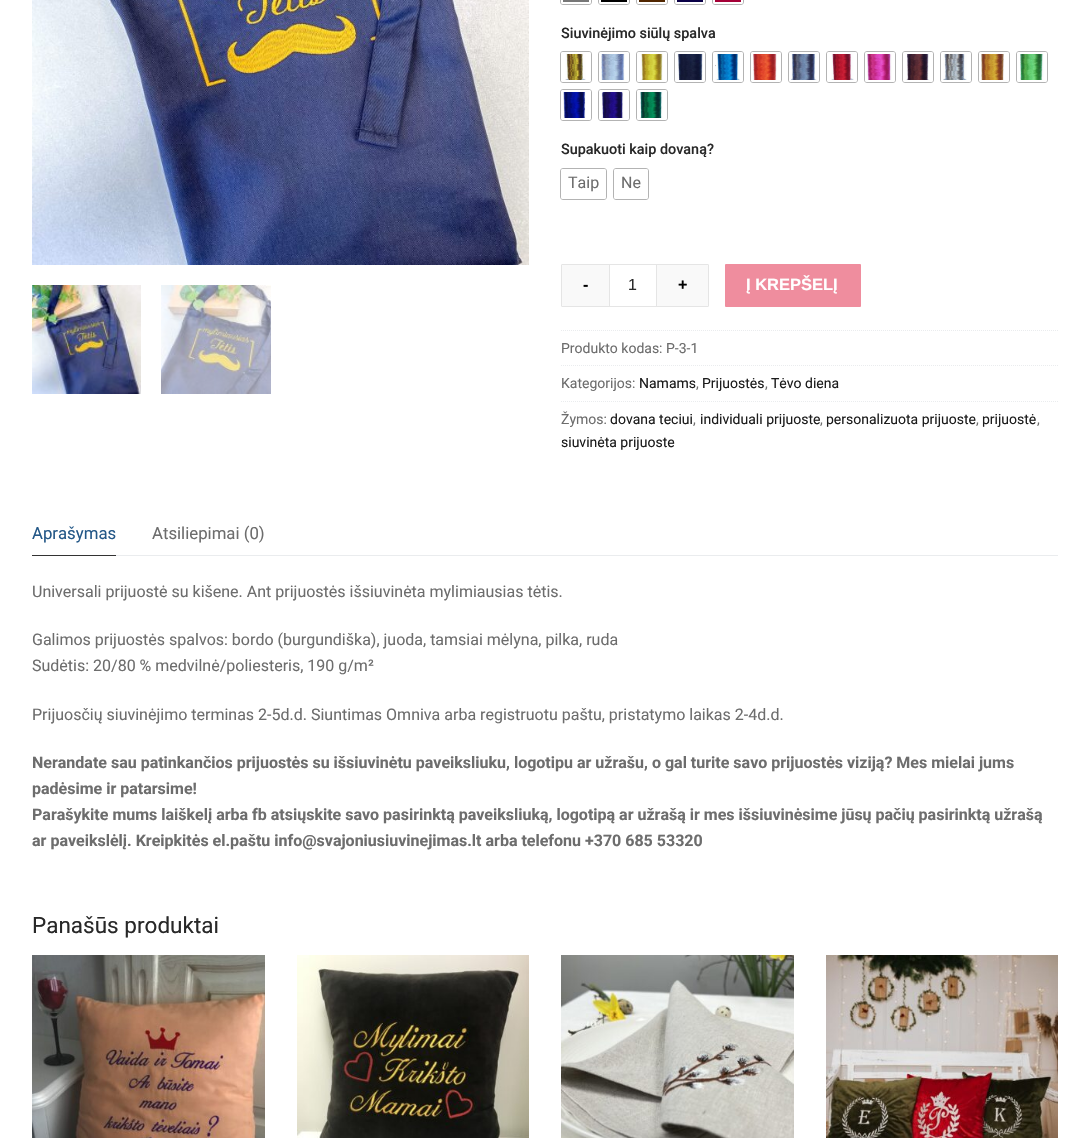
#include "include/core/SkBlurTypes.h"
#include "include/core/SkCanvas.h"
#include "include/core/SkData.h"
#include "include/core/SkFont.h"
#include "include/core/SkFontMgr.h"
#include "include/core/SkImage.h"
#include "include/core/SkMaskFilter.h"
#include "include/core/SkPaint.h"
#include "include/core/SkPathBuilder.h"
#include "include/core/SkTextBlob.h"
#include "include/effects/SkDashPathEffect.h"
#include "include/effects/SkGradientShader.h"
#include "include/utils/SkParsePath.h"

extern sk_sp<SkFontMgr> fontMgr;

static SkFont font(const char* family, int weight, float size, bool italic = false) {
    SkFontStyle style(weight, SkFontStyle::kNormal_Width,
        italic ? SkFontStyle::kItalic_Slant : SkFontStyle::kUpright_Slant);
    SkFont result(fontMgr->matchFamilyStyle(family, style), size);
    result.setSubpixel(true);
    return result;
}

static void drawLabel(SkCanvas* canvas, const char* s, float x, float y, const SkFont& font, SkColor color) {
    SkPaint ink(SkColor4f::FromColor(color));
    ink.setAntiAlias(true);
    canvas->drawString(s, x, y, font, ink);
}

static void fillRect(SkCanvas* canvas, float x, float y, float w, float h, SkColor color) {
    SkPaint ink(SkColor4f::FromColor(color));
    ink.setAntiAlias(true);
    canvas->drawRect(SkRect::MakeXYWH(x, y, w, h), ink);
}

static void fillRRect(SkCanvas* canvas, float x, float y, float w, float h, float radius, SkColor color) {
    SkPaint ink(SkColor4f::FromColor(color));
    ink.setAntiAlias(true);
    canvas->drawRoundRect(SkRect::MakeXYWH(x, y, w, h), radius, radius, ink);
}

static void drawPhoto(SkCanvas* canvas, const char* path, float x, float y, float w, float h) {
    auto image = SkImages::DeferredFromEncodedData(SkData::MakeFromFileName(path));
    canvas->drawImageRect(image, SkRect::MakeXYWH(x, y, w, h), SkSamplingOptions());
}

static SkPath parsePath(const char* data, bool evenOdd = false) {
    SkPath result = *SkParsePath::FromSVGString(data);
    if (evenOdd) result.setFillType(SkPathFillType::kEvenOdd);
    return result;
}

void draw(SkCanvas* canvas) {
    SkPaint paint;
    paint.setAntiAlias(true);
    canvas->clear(0xFFFFFFFF);
    drawPhoto(canvas, "assets/img1.png", 32, 0, 497, 265);
    drawPhoto(canvas, "assets/img2.png", 32, 285, 109, 109);
    drawPhoto(canvas, "assets/img3.png", 161, 285, 110, 109);
    paint.setStroke(true);
    paint.setStrokeWidth(1);
    paint.setColor(0xFFB3B3B3);
    canvas->drawRoundRect(SkRect::MakeXYWH(560.5f, -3.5f, 31, 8), 2.5f, 2.5f, paint);
    fillRRect(canvas, 561, -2, 30, 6, 2, 0xFFFFFFFF);
    fillRect(canvas, 563, 0, 26, 2, 0xFF777777);
    canvas->drawRoundRect(SkRect::MakeXYWH(598.5f, -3.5f, 31, 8), 2.5f, 2.5f, paint);
    fillRRect(canvas, 599, -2, 30, 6, 2, 0xFFFFFFFF);
    fillRect(canvas, 601, 0, 26, 2, 0xFF000000);
    canvas->drawRoundRect(SkRect::MakeXYWH(636.5f, -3.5f, 31, 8), 2.5f, 2.5f, paint);
    fillRRect(canvas, 637, -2, 30, 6, 2, 0xFFFFFFFF);
    fillRect(canvas, 639, 0, 26, 2, 0xFF512600);
    canvas->drawRoundRect(SkRect::MakeXYWH(674.5f, -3.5f, 31, 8), 2.5f, 2.5f, paint);
    fillRRect(canvas, 675, -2, 30, 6, 2, 0xFFFFFFFF);
    fillRect(canvas, 677, 0, 26, 2, 0xFF0A0047);
    canvas->drawRoundRect(SkRect::MakeXYWH(712.5f, -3.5f, 31, 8), 2.5f, 2.5f, paint);
    fillRRect(canvas, 713, -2, 30, 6, 2, 0xFFFFFFFF);
    fillRect(canvas, 715, 0, 26, 2, 0xFFA50037);
    SkFont font1 = font("Roboto", 500, 14.4f);
    drawLabel(canvas, "Siuvinėjimo siūlų spalva", 561, 38, font1, 0xFF282828);
    canvas->drawRoundRect(SkRect::MakeXYWH(560.5f, 51.5f, 31, 31), 2.5f, 2.5f, paint);
    fillRRect(canvas, 561, 52, 30, 30, 2, 0xFFFFFFFF);
    drawPhoto(canvas, "assets/img4.png", 565, 54, 21, 26);
    canvas->drawRoundRect(SkRect::MakeXYWH(598.5f, 51.5f, 31, 31), 2.5f, 2.5f, paint);
    fillRRect(canvas, 599, 52, 30, 30, 2, 0xFFFFFFFF);
    drawPhoto(canvas, "assets/img5.png", 601, 54, 24, 26);
    canvas->drawRoundRect(SkRect::MakeXYWH(636.5f, 51.5f, 31, 31), 2.5f, 2.5f, paint);
    fillRRect(canvas, 637, 52, 30, 30, 2, 0xFFFFFFFF);
    drawPhoto(canvas, "assets/img6.png", 640, 54, 23, 26);
    canvas->drawRoundRect(SkRect::MakeXYWH(674.5f, 51.5f, 31, 31), 2.5f, 2.5f, paint);
    fillRRect(canvas, 675, 52, 30, 30, 2, 0xFFFFFFFF);
    drawPhoto(canvas, "assets/img7.png", 677, 54, 26, 26);
    canvas->drawRoundRect(SkRect::MakeXYWH(712.5f, 51.5f, 31, 31), 2.5f, 2.5f, paint);
    fillRRect(canvas, 713, 52, 30, 30, 2, 0xFFFFFFFF);
    drawPhoto(canvas, "assets/img8.png", 715, 54, 25, 26);
    canvas->drawRoundRect(SkRect::MakeXYWH(750.5f, 51.5f, 31, 31), 2.5f, 2.5f, paint);
    fillRRect(canvas, 751, 52, 30, 30, 2, 0xFFFFFFFF);
    drawPhoto(canvas, "assets/img9.png", 753, 54, 24, 26);
    canvas->drawRoundRect(SkRect::MakeXYWH(788.5f, 51.5f, 31, 31), 2.5f, 2.5f, paint);
    fillRRect(canvas, 789, 52, 30, 30, 2, 0xFFFFFFFF);
    drawPhoto(canvas, "assets/img10.png", 791, 54, 26, 26);
    canvas->drawRoundRect(SkRect::MakeXYWH(826.5f, 51.5f, 31, 31), 2.5f, 2.5f, paint);
    fillRRect(canvas, 827, 52, 30, 30, 2, 0xFFFFFFFF);
    drawPhoto(canvas, "assets/img11.png", 831, 54, 23, 26);
    canvas->drawRoundRect(SkRect::MakeXYWH(864.5f, 51.5f, 31, 31), 2.5f, 2.5f, paint);
    fillRRect(canvas, 865, 52, 30, 30, 2, 0xFFFFFFFF);
    drawPhoto(canvas, "assets/img12.png", 867, 54, 25, 26);
    canvas->drawRoundRect(SkRect::MakeXYWH(902.5f, 51.5f, 31, 31), 2.5f, 2.5f, paint);
    fillRRect(canvas, 903, 52, 30, 30, 2, 0xFFFFFFFF);
    drawPhoto(canvas, "assets/img13.png", 906, 54, 23, 26);
    canvas->drawRoundRect(SkRect::MakeXYWH(940.5f, 51.5f, 31, 31), 2.5f, 2.5f, paint);
    fillRRect(canvas, 941, 52, 30, 30, 2, 0xFFFFFFFF);
    drawPhoto(canvas, "assets/img14.png", 943, 54, 24, 26);
    canvas->drawRoundRect(SkRect::MakeXYWH(978.5f, 51.5f, 31, 31), 2.5f, 2.5f, paint);
    fillRRect(canvas, 979, 52, 30, 30, 2, 0xFFFFFFFF);
    drawPhoto(canvas, "assets/img15.png", 981, 54, 23, 26);
    canvas->drawRoundRect(SkRect::MakeXYWH(1016.5f, 51.5f, 31, 31), 2.5f, 2.5f, paint);
    fillRRect(canvas, 1017, 52, 30, 30, 2, 0xFFFFFFFF);
    drawPhoto(canvas, "assets/img16.png", 1020, 54, 24, 26);
    canvas->drawRoundRect(SkRect::MakeXYWH(560.5f, 89.5f, 31, 31), 2.5f, 2.5f, paint);
    fillRRect(canvas, 561, 90, 30, 30, 2, 0xFFFFFFFF);
    drawPhoto(canvas, "assets/img17.png", 563, 92, 23, 26);
    canvas->drawRoundRect(SkRect::MakeXYWH(598.5f, 89.5f, 31, 31), 2.5f, 2.5f, paint);
    fillRRect(canvas, 599, 90, 30, 30, 2, 0xFFFFFFFF);
    drawPhoto(canvas, "assets/img18.png", 601, 92, 23, 26);
    canvas->drawRoundRect(SkRect::MakeXYWH(636.5f, 89.5f, 31, 31), 2.5f, 2.5f, paint);
    fillRRect(canvas, 637, 90, 30, 30, 2, 0xFFFFFFFF);
    drawPhoto(canvas, "assets/img19.png", 640, 92, 23, 26);
    drawLabel(canvas, "Supakuoti kaip dovaną?", 561, 154, font1, 0xFF282828);
    canvas->drawRoundRect(SkRect::MakeXYWH(560.5f, 168.5f, 46, 31), 2.5f, 2.5f, paint);
    fillRRect(canvas, 561, 169, 45, 30, 2, 0xFFFFFFFF);
    SkFont font2 = font("Roboto", 400, 16);
    drawLabel(canvas, "Taip", 568, 188, font2, 0xFF6D6D6D);
    canvas->drawRoundRect(SkRect::MakeXYWH(613.5f, 168.5f, 35, 31), 2.5f, 2.5f, paint);
    fillRRect(canvas, 614, 169, 34, 30, 2, 0xFFFFFFFF);
    drawLabel(canvas, "Ne", 621, 188, font2, 0xFF6D6D6D);
    paint.setColor(0xFFE5E5E5);
    canvas->drawRoundRect(SkRect::MakeXYWH(561.5f, 264.5f, 147, 42), 0.5f, 0.5f, paint);
    fillRRect(canvas, 562, 265, 47, 41, 1, 0xFFF9F9F9);
    SkFont font3 = font("Liberation Sans", 700, 16);
    drawLabel(canvas, "-", 583, 290, font3, 0xFF000000);
    fillRect(canvas, 656, 265, 1, 41, 0xFFE5E5E5);
    fillRect(canvas, 609, 265, 1, 41, 0xFFE5E5E5);
    SkFont font4 = font("Liberation Sans", 400, 16);
    drawLabel(canvas, "1", 628, 290, font4, 0xFF282828);
    fillRRect(canvas, 657, 265, 51, 41, 1, 0xFFF9F9F9);
    drawLabel(canvas, "+", 678, 290, font3, 0xFF000000);
    fillRRect(canvas, 725, 264, 136, 43, 1, 0xFFEF8D9E);
    SkFont font5 = font("Liberation Sans", 700, 16.5f);
    drawLabel(canvas, "Į KREPŠELĮ", 746, 290, font5, 0xFFFFFFFF);
    paint.setColor(0xFFEAECEE);
    paint.setPathEffect(SkDashPathEffect::Make({{1, 1}}, 0));
    canvas->drawPath(parsePath("M561 330.5H1058"), paint);
    paint.setPathEffect(nullptr);
    SkFont font6 = font("Roboto", 400, 14);
    drawLabel(canvas, "Produkto kodas: P-3-1", 561, 353, font6, 0xFF6D6D6D);
    paint.setPathEffect(SkDashPathEffect::Make({{1, 1}}, 0));
    canvas->drawPath(parsePath("M561 365.5H1058"), paint);
    paint.setPathEffect(nullptr);
    drawLabel(canvas, "Kategorijos:", 561, 388, font6, 0xFF6D6D6D);
    drawLabel(canvas, "Namams", 639, 388, font6, 0xFF1C1C1C);
    drawLabel(canvas, ",", 696, 388, font6, 0xFF6D6D6D);
    drawLabel(canvas, "Prijuostės", 702, 388, font6, 0xFF1C1C1C);
    drawLabel(canvas, ",", 765, 388, font6, 0xFF6D6D6D);
    drawLabel(canvas, "Tėvo diena", 771, 388, font6, 0xFF1C1C1C);
    paint.setPathEffect(SkDashPathEffect::Make({{1, 1}}, 0));
    canvas->drawPath(parsePath("M561 401.5H1058"), paint);
    paint.setPathEffect(nullptr);
    drawLabel(canvas, "Žymos:", 561, 424, font6, 0xFF6D6D6D);
    drawLabel(canvas, "dovana teciui", 610, 424, font6, 0xFF1C1C1C);
    drawLabel(canvas, ",", 693, 424, font6, 0xFF6D6D6D);
    drawLabel(canvas, "individuali prijuoste", 700, 424, font6, 0xFF1C1C1C);
    drawLabel(canvas, ",", 820, 424, font6, 0xFF6D6D6D);
    drawLabel(canvas, "personalizuota prijuoste", 826, 424, font6, 0xFF1C1C1C);
    drawLabel(canvas, ",", 976, 424, font6, 0xFF6D6D6D);
    drawLabel(canvas, "prijuostė", 982, 424, font6, 0xFF1C1C1C);
    drawLabel(canvas, ",", 1037, 424, font6, 0xFF6D6D6D);
    drawLabel(canvas, "siuvinėta prijuoste", 561, 447, font6, 0xFF1C1C1C);
    fillRect(canvas, 116, 555, 942, 1, 0xFFEAECEE);
    fillRect(canvas, 32, 555, 84, 1, 0xFF333333);
    SkFont font7 = font("Roboto", 400, 16.75f);
    drawLabel(canvas, "Aprašymas", 32, 539, font7, 0xFF235787);
    drawLabel(canvas, "Atsiliepimai (0)", 152, 539, font7, 0xFF6D6D6D);
    drawLabel(canvas, "Universali prijuostė su kišene. Ant prijuostės išsiuvinėta mylimiausias tėtis.", 32, 597, font2, 0xFF6D6D6D);
    drawLabel(canvas, "Galimos prijuostės spalvos: bordo (burgundiška), juoda, tamsiai mėlyna, pilka, ruda", 32, 645, font2, 0xFF6D6D6D);
    drawLabel(canvas, "Sudėtis: 20/80 % medvilnė/poliesteris, 190 g/m²", 32, 671, font2, 0xFF6D6D6D);
    drawLabel(canvas, "Prijuosčių siuvinėjimo terminas 2-5d.d. Siuntimas Omniva arba registruotu paštu, pristatymo laikas 2-4d.d.", 32, 720, font2, 0xFF6D6D6D);
    SkFont font8 = font("Roboto", 700, 16);
    drawLabel(canvas, "Nerandate sau patinkančios prijuostės su išsiuvinėtu paveiksliuku, logotipu ar užrašu, o gal turite savo prijuostės viziją? Mes mielai jums", 32, 768, font8, 0xFF6D6D6D);
    drawLabel(canvas, "padėsime ir patarsime!", 32, 794, font8, 0xFF6D6D6D);
    drawLabel(canvas, "Parašykite mums laiškelį arba fb atsiųskite savo pasirinktą paveiksliuką, logotipą ar užrašą ir mes išsiuvinėsime jūsų pačių pasirinktą užrašą", 32, 820, font8, 0xFF6D6D6D);
    drawLabel(canvas, "ar paveikslėlį. Kreipkitės el.paštu info@svajoniusiuvinejimas.lt arba telefonu +370 685 53320", 32, 846, font8, 0xFF6D6D6D);
    SkFont font9 = font("Roboto", 400, 22.5f);
    drawLabel(canvas, "Panašūs produktai", 32, 933, font9, 0xFF282828);
    drawPhoto(canvas, "assets/img20.png", 32, 955, 233, 183);
    drawPhoto(canvas, "assets/img21.png", 297, 955, 232, 183);
    drawPhoto(canvas, "assets/img22.png", 561, 955, 233, 183);
    drawPhoto(canvas, "assets/img23.png", 826, 955, 232, 183);
}
